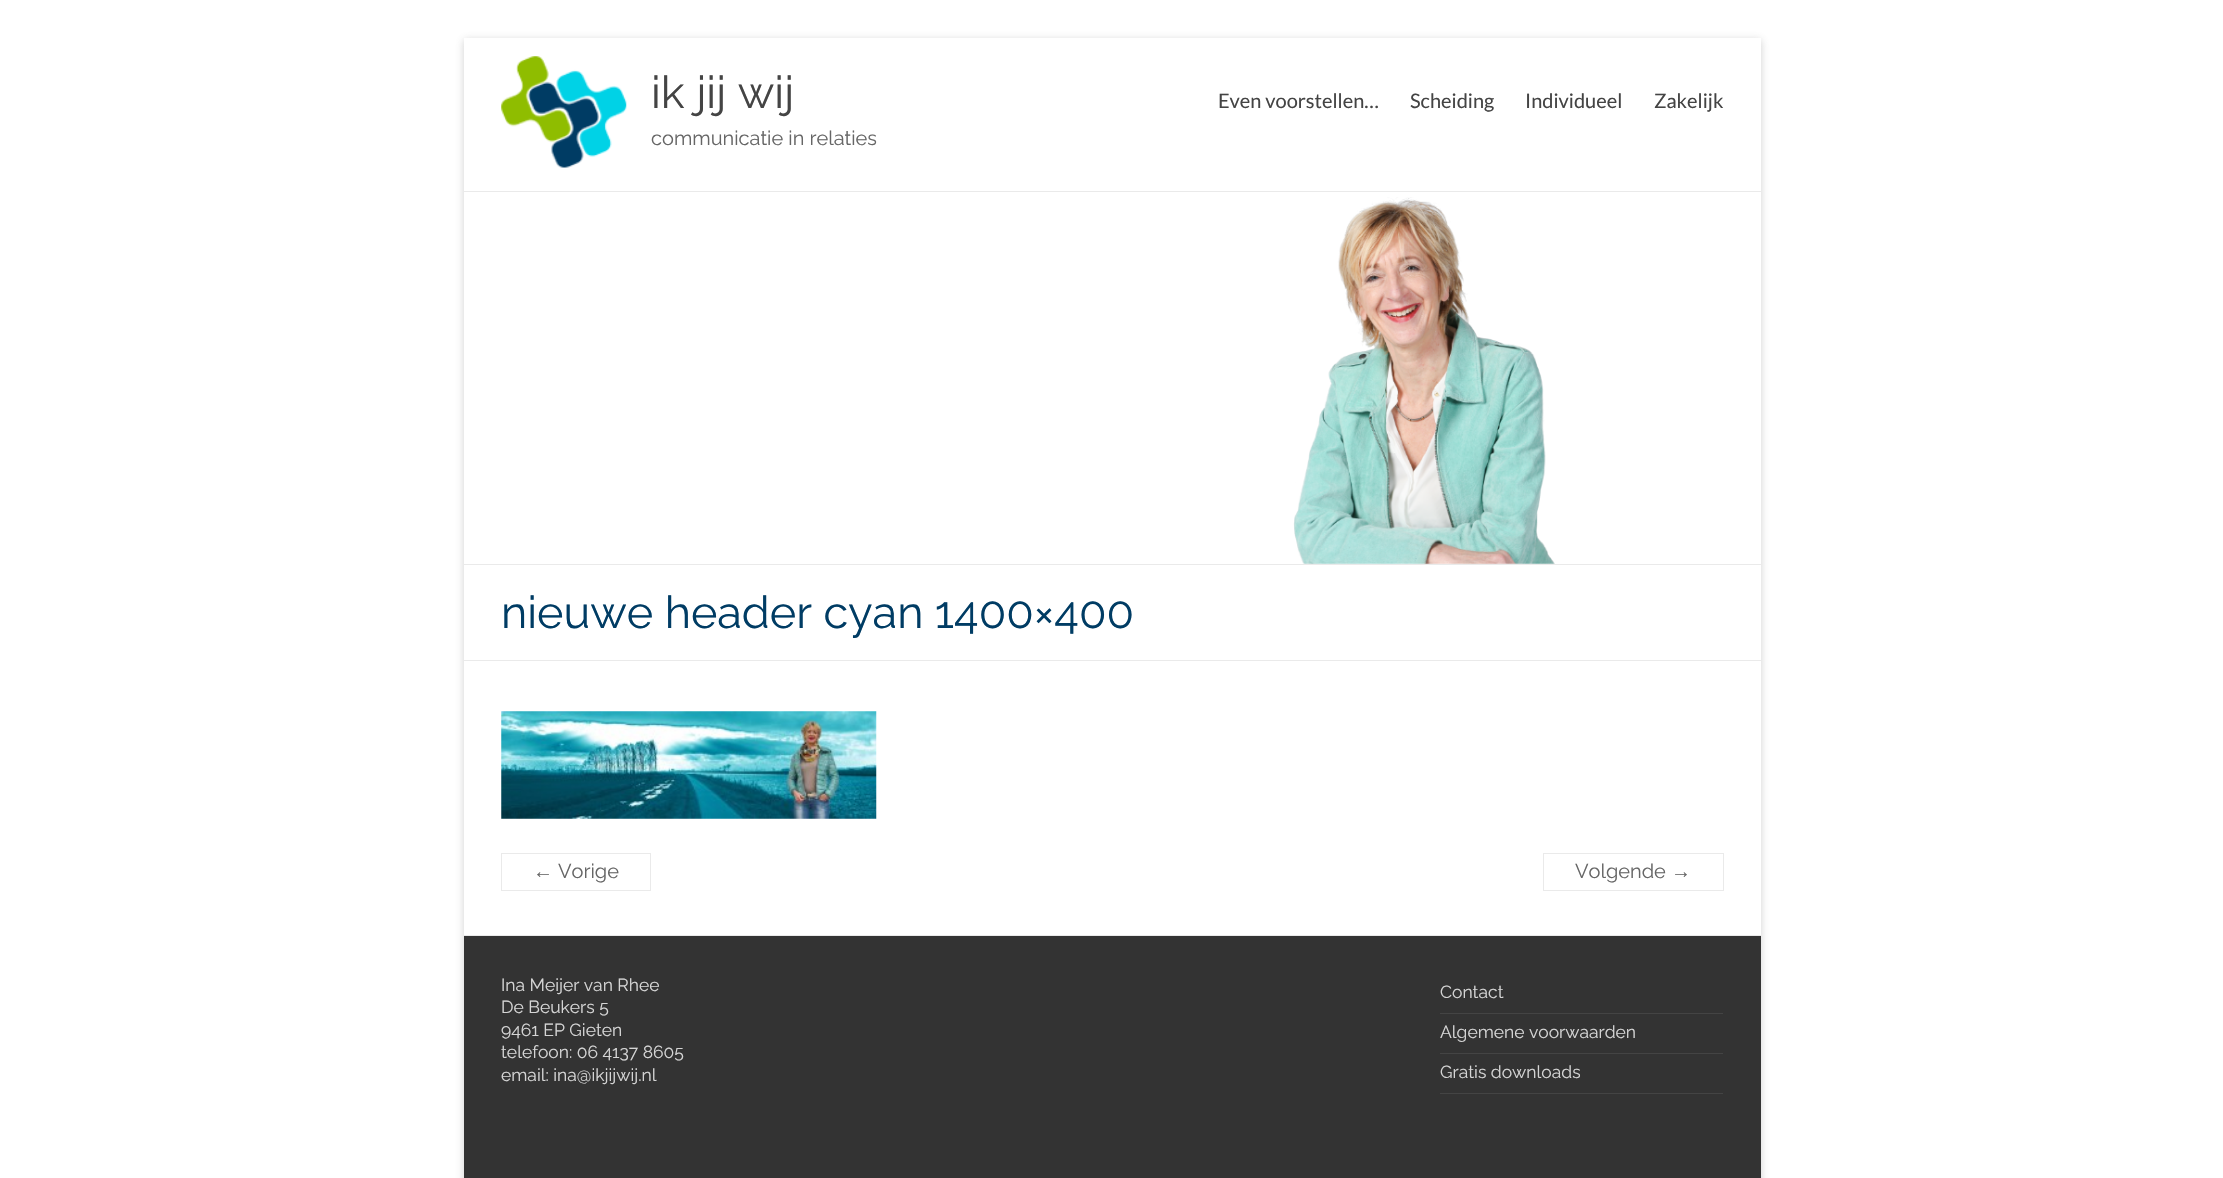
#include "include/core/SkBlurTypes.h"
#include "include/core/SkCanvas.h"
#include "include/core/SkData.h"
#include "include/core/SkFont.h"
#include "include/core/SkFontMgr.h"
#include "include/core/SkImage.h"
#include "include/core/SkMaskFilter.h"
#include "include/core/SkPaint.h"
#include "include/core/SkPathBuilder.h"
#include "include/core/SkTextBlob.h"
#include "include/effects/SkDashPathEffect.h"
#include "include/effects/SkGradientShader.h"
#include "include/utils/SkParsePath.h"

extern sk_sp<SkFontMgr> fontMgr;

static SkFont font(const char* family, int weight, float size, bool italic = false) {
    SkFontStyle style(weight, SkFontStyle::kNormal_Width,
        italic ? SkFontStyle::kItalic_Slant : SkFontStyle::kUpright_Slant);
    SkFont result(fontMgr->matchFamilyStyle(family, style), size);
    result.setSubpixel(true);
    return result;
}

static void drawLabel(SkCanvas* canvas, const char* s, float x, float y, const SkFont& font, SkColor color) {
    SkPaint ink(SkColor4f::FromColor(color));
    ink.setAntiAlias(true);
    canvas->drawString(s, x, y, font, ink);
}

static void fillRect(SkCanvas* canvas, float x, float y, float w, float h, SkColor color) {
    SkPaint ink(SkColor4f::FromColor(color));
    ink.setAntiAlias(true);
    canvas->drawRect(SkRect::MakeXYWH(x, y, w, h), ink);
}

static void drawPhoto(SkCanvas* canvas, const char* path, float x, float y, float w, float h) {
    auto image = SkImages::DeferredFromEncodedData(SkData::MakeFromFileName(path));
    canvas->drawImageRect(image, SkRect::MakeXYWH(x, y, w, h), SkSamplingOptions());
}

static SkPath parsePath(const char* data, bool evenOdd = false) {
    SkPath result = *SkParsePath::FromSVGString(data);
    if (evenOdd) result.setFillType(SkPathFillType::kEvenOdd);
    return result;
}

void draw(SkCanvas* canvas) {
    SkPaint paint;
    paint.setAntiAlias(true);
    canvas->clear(0xFFFFFFFF);
    canvas->save();
    canvas->clipPath(parsePath("M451 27H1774V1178H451ZM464 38H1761V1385H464Z", true), true);
    paint.setColor(0x4D646464);
    paint.setMaskFilter(SkMaskFilter::MakeBlur(kNormal_SkBlurStyle, 4));
    canvas->drawRect(SkRect::MakeXYWH(464, 40, 1297, 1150), paint);
    paint.setMaskFilter(nullptr);
    canvas->restore();
    fillRect(canvas, 464, 191, 1297, 1, 0xFFEAEAEA);
    drawPhoto(canvas, "assets/img1.png", 501, 56, 126, 112);
    SkFont font1 = font("Raleway", 100, 45);
    drawLabel(canvas, "ik jij wij", 651, 108, font1, 0xFF444444);
    SkFont font2 = font("Raleway", 100, 20);
    drawLabel(canvas, "communicatie in relaties", 651, 145, font2, 0xFF666666);
    SkFont font3 = font("Lato", 400, 20);
    drawLabel(canvas, "Even voorstellen…", 1218, 108, font3, 0xFF444444);
    drawLabel(canvas, "Scheiding", 1410, 108, font3, 0xFF444444);
    drawLabel(canvas, "Individueel", 1525, 108, font3, 0xFF444444);
    drawLabel(canvas, "Zakelijk", 1654, 108, font3, 0xFF444444);
    drawPhoto(canvas, "assets/img2.png", 1293, 197, 262, 367);
    fillRect(canvas, 464, 564, 1297, 1, 0xFFEAEAEA);
    fillRect(canvas, 464, 660, 1297, 1, 0xFFEAEAEA);
    drawLabel(canvas, "nieuwe header cyan 1400×400", 501, 628, font1, 0xFF003C64);
    drawPhoto(canvas, "assets/img3.png", 501, 711, 376, 108);
    paint.setStroke(true);
    paint.setStrokeWidth(1);
    paint.setColor(0xFFEAEAEA);
    canvas->drawRect(SkRect::MakeXYWH(501.5f, 853.5f, 149, 37), paint);
    SkFont font4 = font("Liberation Serif", 400, 20);
    drawLabel(canvas, "←", 533, 878, font4, 0xFF666666);
    drawLabel(canvas, "Vorige", 558, 878, font2, 0xFF666666);
    canvas->drawRect(SkRect::MakeXYWH(1543.5f, 853.5f, 180, 37), paint);
    drawLabel(canvas, "Volgende", 1575, 878, font2, 0xFF666666);
    drawLabel(canvas, "→", 1671, 878, font4, 0xFF666666);
    fillRect(canvas, 464, 936, 1297, 242, 0xFF333333);
    fillRect(canvas, 464, 935, 1297, 1, 0xFFEAEAEA);
    SkFont font5 = font("Raleway", 100, 17.5f);
    drawLabel(canvas, "Ina Meijer van Rhee", 501, 991, font5, 0xFFD5D5D5);
    drawLabel(canvas, "De Beukers 5", 501, 1013, font5, 0xFFD5D5D5);
    drawLabel(canvas, "9461 EP Gieten", 501, 1036, font5, 0xFFD5D5D5);
    drawLabel(canvas, "telefoon: 06 4137 8605", 501, 1058, font5, 0xFFD5D5D5);
    drawLabel(canvas, "email: ina@ikjijwij.nl", 501, 1081, font5, 0xFFD5D5D5);
    fillRect(canvas, 1440, 1013, 283, 1, 0xFF444444);
    drawLabel(canvas, "Contact", 1440, 998, font5, 0xFFD5D5D5);
    fillRect(canvas, 1440, 1053, 283, 1, 0xFF444444);
    drawLabel(canvas, "Algemene voorwaarden", 1440, 1038, font5, 0xFFD5D5D5);
    fillRect(canvas, 1440, 1093, 283, 1, 0xFF444444);
    drawLabel(canvas, "Gratis downloads", 1440, 1078, font5, 0xFFD5D5D5);
}
